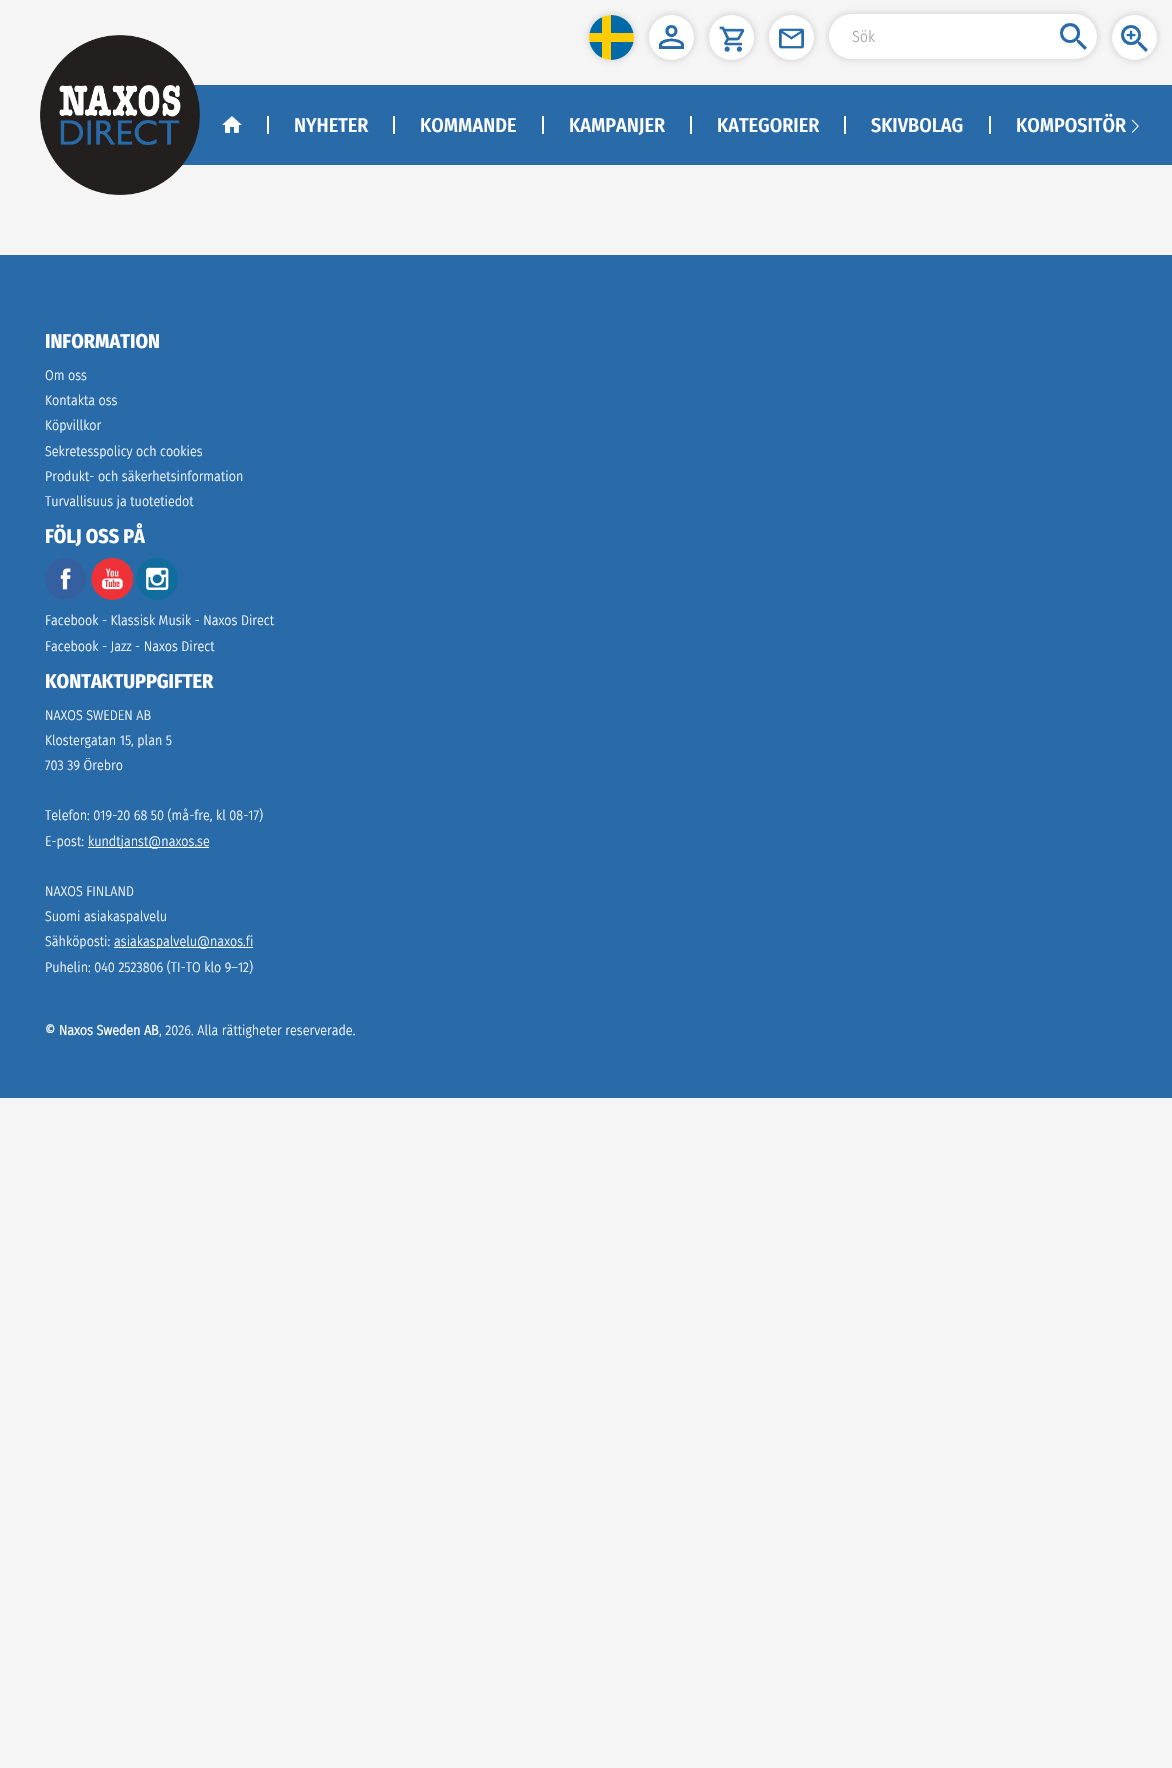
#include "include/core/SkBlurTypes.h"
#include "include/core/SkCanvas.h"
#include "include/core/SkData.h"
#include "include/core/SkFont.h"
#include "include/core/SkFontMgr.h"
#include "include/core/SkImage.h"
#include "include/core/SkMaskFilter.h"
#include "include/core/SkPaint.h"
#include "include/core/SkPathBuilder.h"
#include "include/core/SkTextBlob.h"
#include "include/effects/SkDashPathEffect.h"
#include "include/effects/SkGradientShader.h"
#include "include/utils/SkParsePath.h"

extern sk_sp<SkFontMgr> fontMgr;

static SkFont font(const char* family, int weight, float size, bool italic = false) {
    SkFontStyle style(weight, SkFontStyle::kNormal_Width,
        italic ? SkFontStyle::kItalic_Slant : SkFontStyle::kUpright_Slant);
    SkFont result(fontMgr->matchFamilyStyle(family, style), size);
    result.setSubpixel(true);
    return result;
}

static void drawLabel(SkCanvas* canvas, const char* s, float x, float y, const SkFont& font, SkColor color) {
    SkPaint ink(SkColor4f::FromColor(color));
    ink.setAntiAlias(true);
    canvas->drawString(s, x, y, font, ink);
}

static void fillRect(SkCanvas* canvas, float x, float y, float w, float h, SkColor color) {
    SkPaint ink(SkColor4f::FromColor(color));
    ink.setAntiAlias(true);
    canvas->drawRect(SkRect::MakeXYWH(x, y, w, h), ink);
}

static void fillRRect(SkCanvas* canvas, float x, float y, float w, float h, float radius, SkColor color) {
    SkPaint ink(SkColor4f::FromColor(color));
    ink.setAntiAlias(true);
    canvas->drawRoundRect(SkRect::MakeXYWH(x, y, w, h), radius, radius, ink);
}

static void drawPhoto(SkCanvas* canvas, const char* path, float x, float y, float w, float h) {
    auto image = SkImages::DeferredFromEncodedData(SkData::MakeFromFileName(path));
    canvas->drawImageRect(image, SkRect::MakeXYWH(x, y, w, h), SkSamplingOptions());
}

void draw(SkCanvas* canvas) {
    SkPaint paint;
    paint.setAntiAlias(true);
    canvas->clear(0xFFF5F5F5);
    paint.setColor(0x1A000000);
    paint.setMaskFilter(SkMaskFilter::MakeBlur(kNormal_SkBlurStyle, 2.5f));
    canvas->drawRoundRect(SkRect::MakeXYWH(587, 13, 49, 49), 24.5f, 24.5f, paint);
    paint.setMaskFilter(nullptr);
    paint.setColor(0xFFFFFFFF);
    canvas->drawCircle(611.5f, 37.5f, 22.5f, paint);
    drawPhoto(canvas, "assets/img1.png", 589, 15, 45, 45);
    paint.setColor(0x1A000000);
    paint.setMaskFilter(SkMaskFilter::MakeBlur(kNormal_SkBlurStyle, 2.5f));
    canvas->drawRoundRect(SkRect::MakeXYWH(647, 13, 49, 49), 24.5f, 24.5f, paint);
    paint.setMaskFilter(nullptr);
    paint.setColor(0xFFFFFFFF);
    canvas->drawCircle(671.5f, 37.5f, 22.5f, paint);
    drawPhoto(canvas, "assets/img2.png", 659, 25, 25, 24);
    paint.setColor(0x1A000000);
    paint.setMaskFilter(SkMaskFilter::MakeBlur(kNormal_SkBlurStyle, 2.5f));
    canvas->drawRoundRect(SkRect::MakeXYWH(707, 13, 49, 49), 24.5f, 24.5f, paint);
    paint.setMaskFilter(nullptr);
    paint.setColor(0xFFFFFFFF);
    canvas->drawCircle(731.5f, 37.5f, 22.5f, paint);
    drawPhoto(canvas, "assets/img3.png", 719, 26, 26, 26);
    paint.setColor(0x1A000000);
    paint.setMaskFilter(SkMaskFilter::MakeBlur(kNormal_SkBlurStyle, 2.5f));
    canvas->drawRoundRect(SkRect::MakeXYWH(767, 13, 49, 49), 24.5f, 24.5f, paint);
    paint.setMaskFilter(nullptr);
    paint.setColor(0xFFFFFFFF);
    canvas->drawCircle(791.5f, 37.5f, 22.5f, paint);
    drawPhoto(canvas, "assets/img4.png", 779, 28, 26, 21);
    paint.setColor(0x1A000000);
    paint.setMaskFilter(SkMaskFilter::MakeBlur(kNormal_SkBlurStyle, 2.5f));
    canvas->drawRoundRect(SkRect::MakeXYWH(827, 12, 272, 49), 24.5f, 24.5f, paint);
    paint.setMaskFilter(nullptr);
    fillRRect(canvas, 829, 14, 268, 45, 22.5f, 0xFFFFFFFF);
    SkFont font1 = font("Fira Sans Condensed", 300, 16);
    drawLabel(canvas, "Sök", 852, 42, font1, 0xFFA0A0A0);
    drawPhoto(canvas, "assets/img5.png", 1060, 23, 27, 27);
    paint.setMaskFilter(SkMaskFilter::MakeBlur(kNormal_SkBlurStyle, 2.5f));
    canvas->drawRoundRect(SkRect::MakeXYWH(1110, 13, 49, 49), 24.5f, 24.5f, paint);
    paint.setMaskFilter(nullptr);
    paint.setColor(0xFFFFFFFF);
    canvas->drawCircle(1134.5f, 37.5f, 22.5f, paint);
    drawPhoto(canvas, "assets/img6.png", 1121, 25, 27, 27);
    fillRect(canvas, 182, 85, 990, 80, 0xFF296BA9);
    drawPhoto(canvas, "assets/img7.png", 40, 35, 160, 160);
    drawPhoto(canvas, "assets/img8.png", 222, 116, 20, 17);
    fillRect(canvas, 267, 116, 2, 18, 0xFFFFFFFF);
    SkFont font2 = font("Fira Sans Condensed", 500, 20);
    drawLabel(canvas, "NYHETER", 294, 132, font2, 0xFFFFFFFF);
    fillRect(canvas, 393, 116, 2, 18, 0xFFFFFFFF);
    drawLabel(canvas, "KOMMANDE", 420, 132, font2, 0xFFFFFFFF);
    fillRect(canvas, 542, 116, 2, 18, 0xFFFFFFFF);
    drawLabel(canvas, "KAMPANJER", 569, 132, font2, 0xFFFFFFFF);
    fillRect(canvas, 690, 116, 2, 18, 0xFFFFFFFF);
    drawLabel(canvas, "KATEGORIER", 717, 132, font2, 0xFFFFFFFF);
    fillRect(canvas, 844, 116, 2, 18, 0xFFFFFFFF);
    drawLabel(canvas, "SKIVBOLAG", 871, 132, font2, 0xFFFFFFFF);
    fillRect(canvas, 989, 116, 2, 18, 0xFFFFFFFF);
    drawLabel(canvas, "KOMPOSITÖR", 1016, 132, font2, 0xFFFFFFFF);
    drawPhoto(canvas, "assets/img9.png", 1131, 119, 8, 14);
    fillRect(canvas, 0, 255, 1172, 843, 0xFF296BA9);
    SkFont font3 = font("Fira Sans Condensed", 700, 20);
    drawLabel(canvas, "INFORMATION", 45, 348, font3, 0xFFFFFFFF);
    SkFont font4 = font("Fira Sans Condensed", 300, 14);
    drawLabel(canvas, "Om oss", 45, 380, font4, 0xFFFFFFFF);
    drawLabel(canvas, "Kontakta oss", 45, 405, font4, 0xFFFFFFFF);
    drawLabel(canvas, "Köpvillkor", 45, 430, font4, 0xFFFFFFFF);
    drawLabel(canvas, "Sekretesspolicy och cookies", 45, 456, font4, 0xFFFFFFFF);
    drawLabel(canvas, "Produkt- och säkerhetsinformation", 45, 481, font4, 0xFFFFFFFF);
    drawLabel(canvas, "Turvallisuus ja tuotetiedot", 45, 506, font4, 0xFFFFFFFF);
    drawLabel(canvas, "FÖLJ OSS PÅ", 45, 543, font3, 0xFFFFFFFF);
    drawPhoto(canvas, "assets/img10.png", 45, 558, 42, 42);
    drawPhoto(canvas, "assets/img11.png", 91, 558, 42, 42);
    drawPhoto(canvas, "assets/img12.png", 136, 558, 42, 42);
    drawLabel(canvas, "Facebook - Klassisk Musik - Naxos Direct", 45, 625, font4, 0xFFFFFFFF);
    drawLabel(canvas, "Facebook - Jazz - Naxos Direct", 45, 651, font4, 0xFFFFFFFF);
    drawLabel(canvas, "KONTAKTUPPGIFTER", 45, 688, font3, 0xFFFFFFFF);
    drawLabel(canvas, "NAXOS SWEDEN AB", 45, 720, font4, 0xFFFFFFFF);
    drawLabel(canvas, "Klostergatan 15, plan 5", 45, 745, font4, 0xFFFFFFFF);
    drawLabel(canvas, "703 39 Örebro", 45, 770, font4, 0xFFFFFFFF);
    drawLabel(canvas, "Telefon: 019-20 68 50 (må-fre, kl 08-17)", 45, 820, font4, 0xFFFFFFFF);
    drawLabel(canvas, "E-post:", 45, 846, font4, 0xFFFFFFFF);
    fillRect(canvas, 88, 847, 121, 1, 0xFFFFFFFF);
    drawLabel(canvas, "kundtjanst@naxos.se", 88, 846, font4, 0xFFFFFFFF);
    drawLabel(canvas, "NAXOS FINLAND", 45, 896, font4, 0xFFFFFFFF);
    drawLabel(canvas, "Suomi asiakaspalvelu", 45, 921, font4, 0xFFFFFFFF);
    drawLabel(canvas, "Sähköposti:", 45, 946, font4, 0xFFFFFFFF);
    fillRect(canvas, 114, 947, 139, 1, 0xFFFFFFFF);
    drawLabel(canvas, "asiakaspalvelu@naxos.fi", 114, 946, font4, 0xFFFFFFFF);
    drawLabel(canvas, "Puhelin: 040 2523806 (TI-TO klo 9–12)", 45, 972, font4, 0xFFFFFFFF);
    SkFont font5 = font("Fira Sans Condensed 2", 700, 14);
    drawLabel(canvas, "© Naxos Sweden AB", 45, 1035, font5, 0xFFFFFFFF);
    drawLabel(canvas, ", 2026. Alla rättigheter reserverade.", 159, 1035, font4, 0xFFFFFFFF);
}
